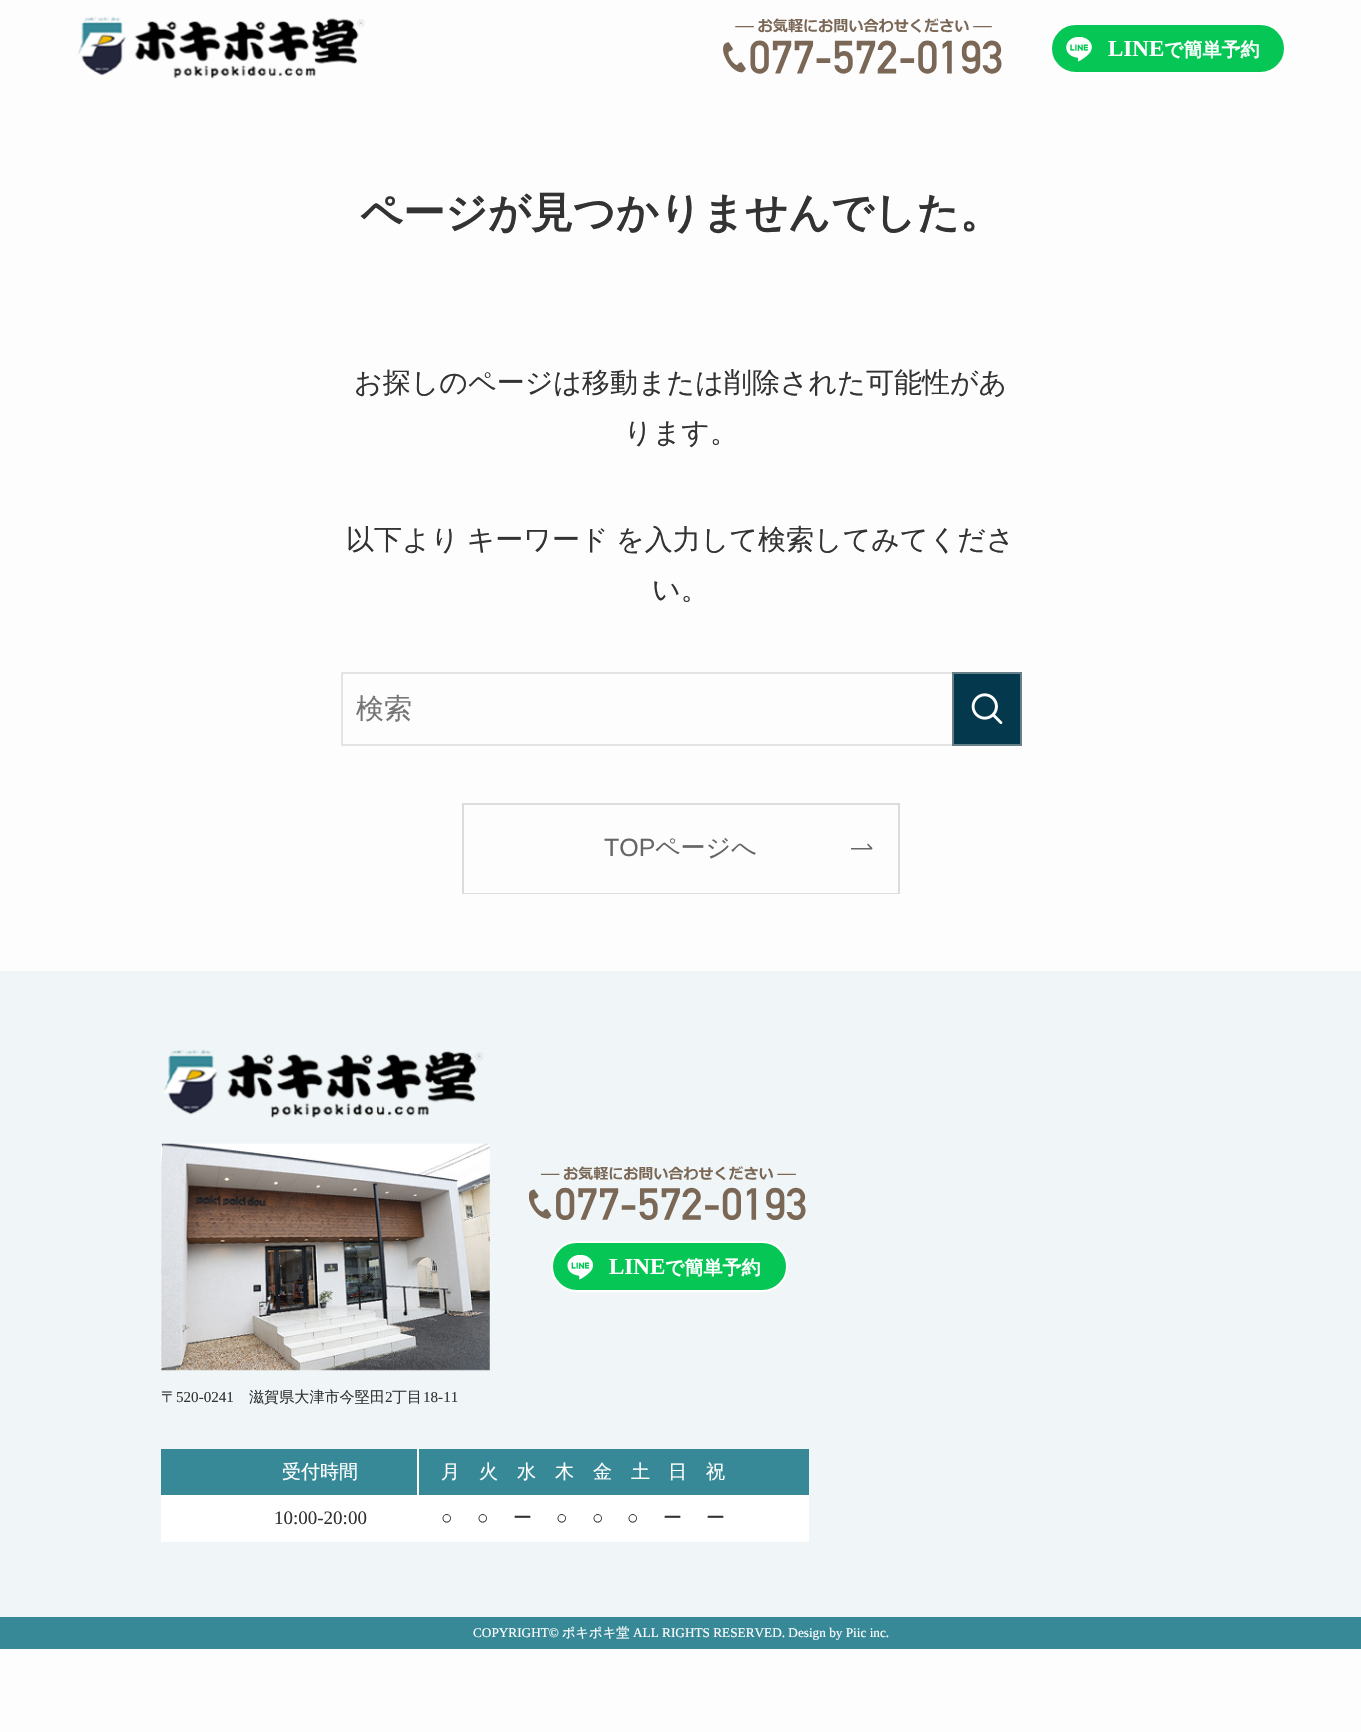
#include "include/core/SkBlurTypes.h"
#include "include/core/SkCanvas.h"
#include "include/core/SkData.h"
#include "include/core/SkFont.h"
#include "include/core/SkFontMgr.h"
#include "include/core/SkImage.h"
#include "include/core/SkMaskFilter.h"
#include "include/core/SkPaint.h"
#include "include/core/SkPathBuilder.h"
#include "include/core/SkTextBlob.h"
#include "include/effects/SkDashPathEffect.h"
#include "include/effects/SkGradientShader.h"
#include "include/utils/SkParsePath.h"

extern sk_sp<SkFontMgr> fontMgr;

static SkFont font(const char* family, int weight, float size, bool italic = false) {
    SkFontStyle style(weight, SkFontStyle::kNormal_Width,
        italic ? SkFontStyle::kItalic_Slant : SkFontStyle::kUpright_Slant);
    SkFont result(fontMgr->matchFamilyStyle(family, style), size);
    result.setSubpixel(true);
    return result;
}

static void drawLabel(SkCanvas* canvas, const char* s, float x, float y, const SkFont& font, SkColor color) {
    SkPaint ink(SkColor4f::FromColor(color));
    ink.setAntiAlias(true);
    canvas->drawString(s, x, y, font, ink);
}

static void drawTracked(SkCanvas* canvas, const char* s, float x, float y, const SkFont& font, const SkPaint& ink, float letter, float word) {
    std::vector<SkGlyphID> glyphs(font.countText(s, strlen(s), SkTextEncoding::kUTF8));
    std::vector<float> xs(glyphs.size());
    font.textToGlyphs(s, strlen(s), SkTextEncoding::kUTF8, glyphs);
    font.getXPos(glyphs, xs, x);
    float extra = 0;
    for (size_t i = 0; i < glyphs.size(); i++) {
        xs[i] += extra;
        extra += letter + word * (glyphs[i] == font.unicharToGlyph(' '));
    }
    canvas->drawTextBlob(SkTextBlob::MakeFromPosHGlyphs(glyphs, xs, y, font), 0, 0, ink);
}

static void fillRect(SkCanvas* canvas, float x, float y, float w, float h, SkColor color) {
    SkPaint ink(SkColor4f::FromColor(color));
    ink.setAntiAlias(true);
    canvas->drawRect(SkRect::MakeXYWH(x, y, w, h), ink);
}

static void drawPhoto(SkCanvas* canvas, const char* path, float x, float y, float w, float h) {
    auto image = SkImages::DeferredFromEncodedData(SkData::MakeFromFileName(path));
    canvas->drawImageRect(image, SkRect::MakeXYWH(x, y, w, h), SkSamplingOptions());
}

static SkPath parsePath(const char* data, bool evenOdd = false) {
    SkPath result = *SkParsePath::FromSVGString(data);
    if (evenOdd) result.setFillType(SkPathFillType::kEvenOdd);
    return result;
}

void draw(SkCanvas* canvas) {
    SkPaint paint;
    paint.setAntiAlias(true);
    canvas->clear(0xFFFDFDFD);
    drawPhoto(canvas, "assets/img1.png", 76, 16, 289, 63);
    drawPhoto(canvas, "assets/img2.png", 723, 18, 279, 56);
    paint.setColor(0xFF06C755);
    canvas->drawRoundRect(SkRect::MakeXYWH(1051, 24, 234, 49), 24.5f, 24.5f, paint);
    paint.setStroke(true);
    paint.setStrokeWidth(2);
    paint.setColor(0xFFFFFFFF);
    canvas->drawRoundRect(SkRect::MakeXYWH(1051, 24, 234, 49), 24.5f, 24.5f, paint);
    drawPhoto(canvas, "assets/img3.png", 1066, 37, 26, 25);
    SkFont font1 = font("Liberation Serif", 700, 23);
    drawLabel(canvas, "LINE", 1108, 56, font1, 0xFFFFFFFF);
    SkFont font2 = font("WenQuanYi Zen Hei", 700, 19);
    drawLabel(canvas, "で簡単予約", 1164, 56, font2, 0xFFFFFFFF);
    SkFont font3 = font("WenQuanYi Zen Hei", 700, 42);
    drawLabel(canvas, "ページが見つかりませんでした。", 360, 227, font3, 0xFF333333);
    SkFont font4 = font("WenQuanYi Zen Hei", 500, 28);
    drawLabel(canvas, "お探しのページは移動または削除された可能性があ", 354, 392, font4, 0xFF333333);
    drawLabel(canvas, "ります。", 624, 442, font4, 0xFF333333);
    paint.setStroke(false);
    paint.setColor(0xFF333333);
    drawTracked(canvas, "以下より キーワード を入力して検索してみてくださ", 346, 549, font4, paint, 0, -1);
    drawLabel(canvas, "い。", 652, 599, font4, 0xFF333333);
    paint.setStroke(true);
    paint.setColor(0xFFE3E3E3);
    canvas->drawRect(SkRect::MakeXYWH(342, 673, 679, 72), paint);
    drawLabel(canvas, "検索", 356, 718, font4, 0xFF757575);
    paint.setStroke(false);
    paint.setColor(0xFF04384C);
    canvas->drawRect(SkRect::MakeXYWH(953, 673, 68, 72), paint);
    paint.setStroke(true);
    paint.setColor(0xFF66808A);
    canvas->drawRect(SkRect::MakeXYWH(953, 673, 68, 72), paint);
    drawPhoto(canvas, "assets/img4.png", 971, 693, 32, 31);
    paint.setColor(0xFFDCDCDC);
    canvas->drawRect(SkRect::MakeXYWH(463, 804, 436, 89), paint);
    fillRect(canvas, 464, 892, 434, 1, 0xFFFFFFFF);
    SkFont font5 = font("Liberation Sans", 400, 25);
    drawLabel(canvas, "TOP", 604, 856, font5, 0xFF666666);
    SkFont font6 = font("WenQuanYi Zen Hei", 500, 25);
    drawLabel(canvas, "ページへ", 655, 856, font6, 0xFF666666);
    paint.setStroke(false);
    paint.setColor(0xFF666666);
    canvas->drawPath(parsePath("M872 849.5H851V848H870L867 844.5L868 843.5L872.5 848Z"), paint);
    fillRect(canvas, 0, 971, 1361, 646, 0xFFF0F6F7);
    drawPhoto(canvas, "assets/img5.png", 163, 1048, 321, 70);
    drawPhoto(canvas, "assets/img6.png", 529, 1166, 277, 54);
    paint.setColor(0xFF06C755);
    canvas->drawRoundRect(SkRect::MakeXYWH(552, 1242, 235, 49), 24.5f, 24.5f, paint);
    paint.setStroke(true);
    paint.setColor(0xFFFFFFFF);
    canvas->drawRoundRect(SkRect::MakeXYWH(552, 1242, 235, 49), 24.5f, 24.5f, paint);
    drawPhoto(canvas, "assets/img7.png", 567, 1255, 26, 25);
    drawLabel(canvas, "LINE", 609, 1274, font1, 0xFFFFFFFF);
    drawLabel(canvas, "で簡単予約", 665, 1274, font2, 0xFFFFFFFF);
    drawPhoto(canvas, "assets/img8.png", 161, 1143, 329, 228);
    SkFont font7 = font("WenQuanYi Zen Hei", 500, 15.1f);
    drawLabel(canvas, "〒", 161, 1402, font7, 0xFF333333);
    SkFont font8 = font("Liberation Serif", 400, 15.1f);
    drawLabel(canvas, "520-0241", 176, 1402, font8, 0xFF333333);
    drawLabel(canvas, "滋賀県大津市今堅田", 249, 1402, font7, 0xFF333333);
    drawLabel(canvas, "2", 385, 1402, font8, 0xFF333333);
    drawLabel(canvas, "丁目", 392, 1402, font7, 0xFF333333);
    drawLabel(canvas, "18-11", 423, 1402, font8, 0xFF333333);
    fillRect(canvas, 161, 1449, 648, 46, 0xFF388997);
    fillRect(canvas, 417, 1449, 2, 46, 0xFFFFFFFF);
    SkFont font9 = font("WenQuanYi Zen Hei", 500, 19);
    drawLabel(canvas, "受付時間", 282, 1478, font9, 0xFFFFFFFF);
    drawLabel(canvas, "月", 441, 1478, font9, 0xFFFFFFFF);
    drawLabel(canvas, "火", 479, 1478, font9, 0xFFFFFFFF);
    drawLabel(canvas, "水", 517, 1478, font9, 0xFFFFFFFF);
    drawLabel(canvas, "木", 555, 1478, font9, 0xFFFFFFFF);
    drawLabel(canvas, "金", 593, 1478, font9, 0xFFFFFFFF);
    drawLabel(canvas, "土", 631, 1478, font9, 0xFFFFFFFF);
    drawLabel(canvas, "日", 668, 1478, font9, 0xFFFFFFFF);
    drawLabel(canvas, "祝", 706, 1478, font9, 0xFFFFFFFF);
    fillRect(canvas, 161, 1495, 648, 47, 0xFFFFFFFF);
    SkFont font10 = font("Liberation Serif", 400, 19);
    drawLabel(canvas, "10:00-20:00", 274, 1524, font10, 0xFF333333);
    drawLabel(canvas, "○", 441, 1524, font10, 0xFF333333);
    drawLabel(canvas, "○", 477, 1524, font10, 0xFF333333);
    drawLabel(canvas, "ー", 513, 1524, font9, 0xFF333333);
    drawLabel(canvas, "○", 556, 1524, font10, 0xFF333333);
    drawLabel(canvas, "○", 592, 1524, font10, 0xFF333333);
    drawLabel(canvas, "○", 627, 1524, font10, 0xFF333333);
    drawLabel(canvas, "ー", 663, 1524, font9, 0xFF333333);
    drawLabel(canvas, "ー", 706, 1524, font9, 0xFF333333);
    fillRect(canvas, 0, 1617, 1361, 32, 0xFF388997);
    SkFont font11 = font("Liberation Serif", 400, 13.25f);
    drawLabel(canvas, "COPYRIGHT©", 473, 1637, font11, 0xFFFFFFFF);
    SkFont font12 = font("WenQuanYi Zen Hei", 500, 13.25f);
    drawLabel(canvas, "ポキポキ堂", 562, 1637, font12, 0xFFFFFFFF);
    drawLabel(canvas, "ALL RIGHTS RESERVED. Design by Piic inc.", 633, 1637, font11, 0xFFFFFFFF);
}
